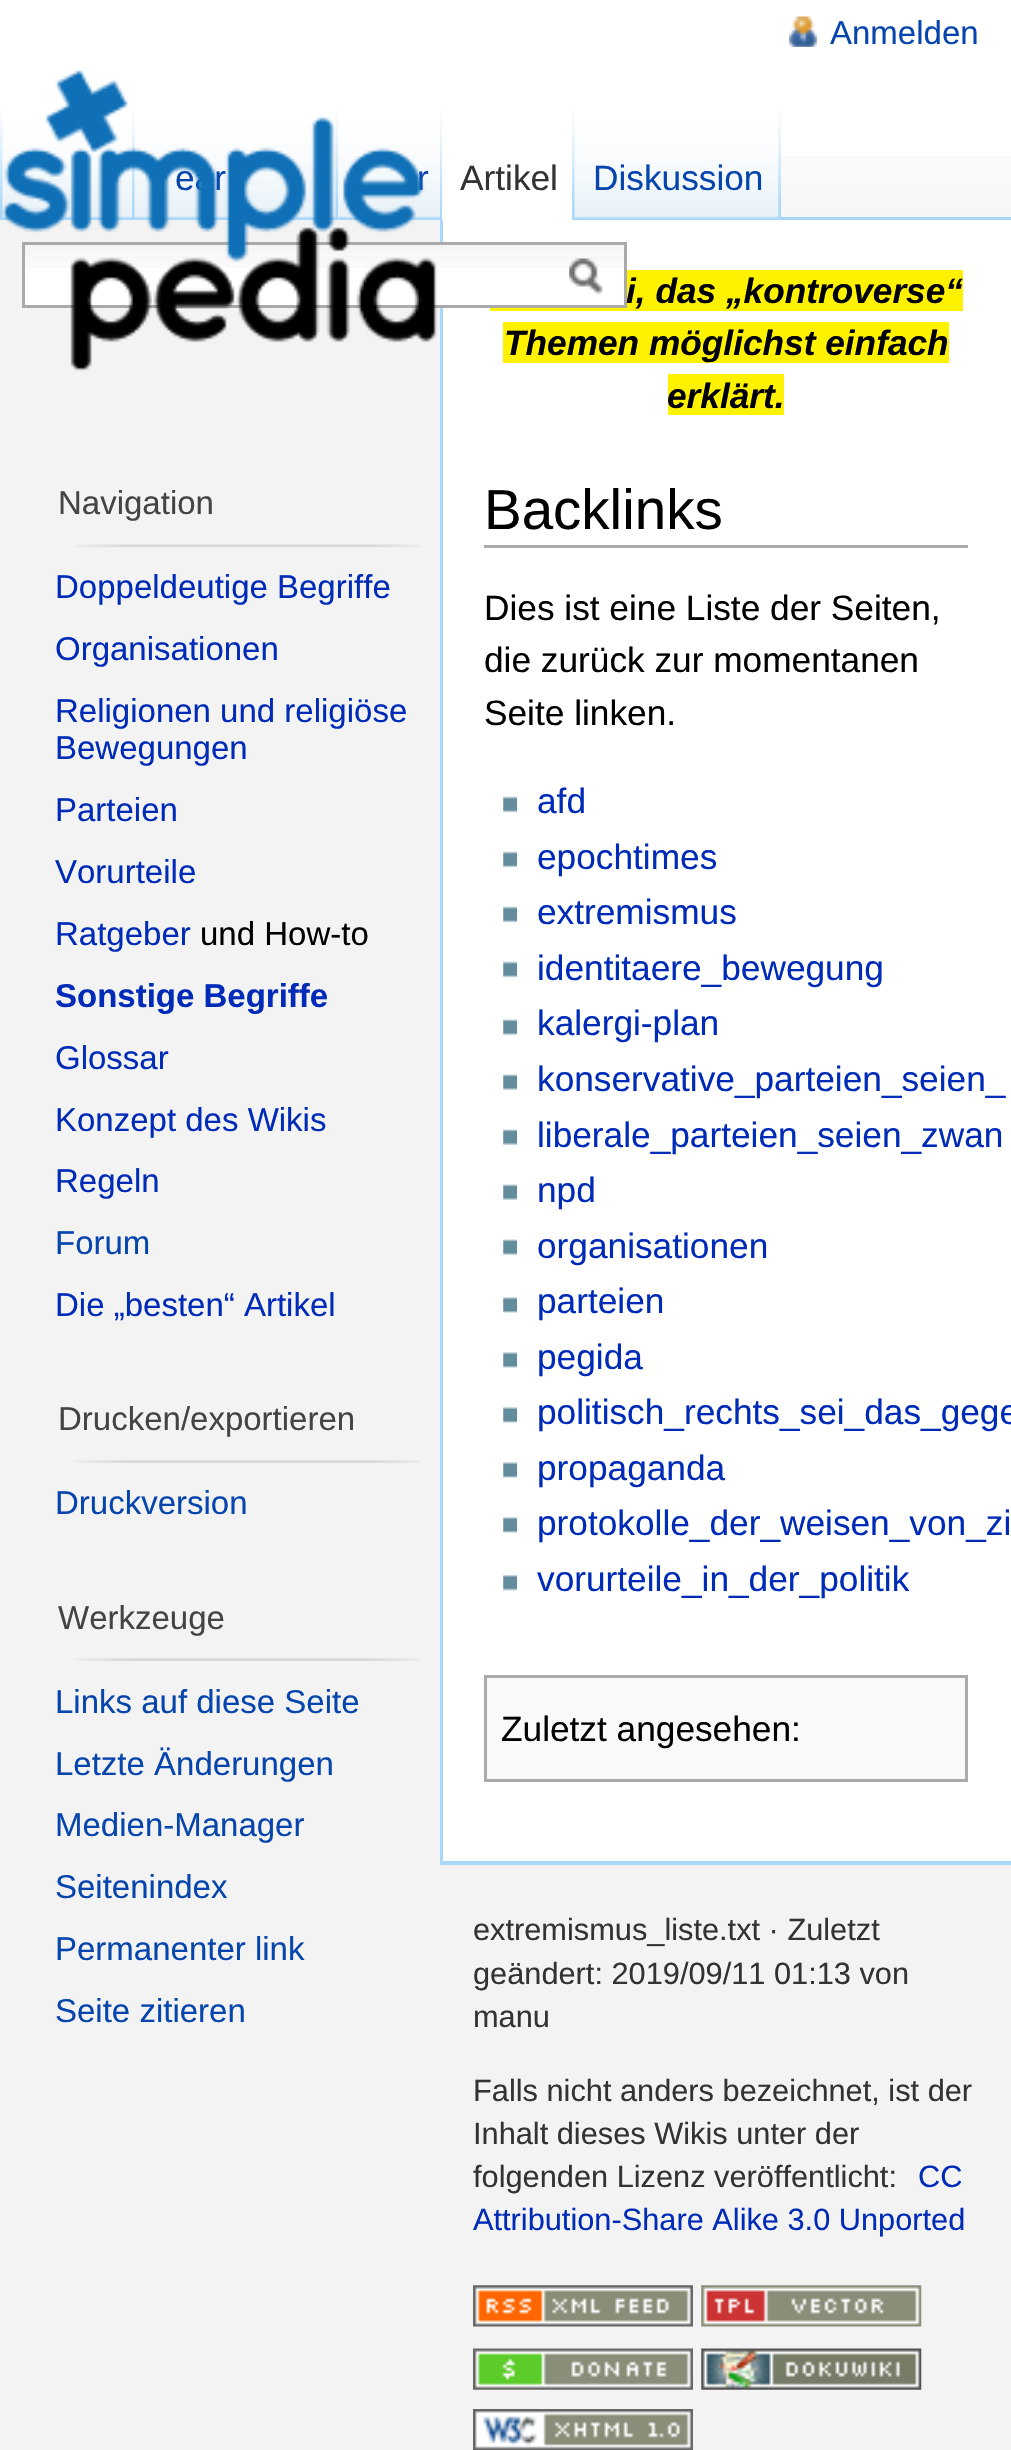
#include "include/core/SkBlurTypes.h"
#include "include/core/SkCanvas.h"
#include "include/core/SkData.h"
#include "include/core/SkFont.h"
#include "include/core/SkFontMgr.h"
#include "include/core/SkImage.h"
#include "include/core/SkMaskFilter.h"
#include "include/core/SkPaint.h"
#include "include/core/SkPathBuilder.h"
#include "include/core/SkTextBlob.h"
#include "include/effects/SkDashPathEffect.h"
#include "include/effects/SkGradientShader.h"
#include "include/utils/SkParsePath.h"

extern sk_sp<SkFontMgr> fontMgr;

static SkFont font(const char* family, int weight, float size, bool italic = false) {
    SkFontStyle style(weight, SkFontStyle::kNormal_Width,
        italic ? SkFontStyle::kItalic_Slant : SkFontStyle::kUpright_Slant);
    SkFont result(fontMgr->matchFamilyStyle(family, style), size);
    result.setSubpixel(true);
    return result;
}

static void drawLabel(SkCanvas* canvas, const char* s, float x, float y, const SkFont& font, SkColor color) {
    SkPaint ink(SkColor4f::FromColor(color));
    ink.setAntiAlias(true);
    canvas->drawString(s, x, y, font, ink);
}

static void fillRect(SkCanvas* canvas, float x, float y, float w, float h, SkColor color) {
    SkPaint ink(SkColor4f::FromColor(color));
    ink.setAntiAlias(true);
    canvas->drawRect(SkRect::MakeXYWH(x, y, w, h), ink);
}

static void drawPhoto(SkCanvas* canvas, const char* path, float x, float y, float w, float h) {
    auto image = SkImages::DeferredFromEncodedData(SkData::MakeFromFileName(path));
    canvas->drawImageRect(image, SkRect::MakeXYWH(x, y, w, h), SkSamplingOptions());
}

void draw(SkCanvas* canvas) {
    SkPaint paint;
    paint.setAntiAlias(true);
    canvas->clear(0xFFF3F3F3);
    fillRect(canvas, 0, 0, 1011, 156, 0xFFFFFFFF);
    drawPhoto(canvas, "assets/img1.png", 2, 156, 1009, 64);
    drawPhoto(canvas, "assets/img2.png", 789, 16, 28, 31);
    SkFont font1 = font("Liberation Sans", 400, 33);
    drawLabel(canvas, "Anmelden", 830, 44, font1, 0xFF0645AD);
    drawPhoto(canvas, "assets/img3.png", 0, 110, 3, 110);
    drawPhoto(canvas, "assets/img4.png", 2, 110, 133, 110);
    drawPhoto(canvas, "assets/img5.png", 132, 110, 3, 110);
    drawPhoto(canvas, "assets/img6.png", 134, 110, 205, 110);
    drawPhoto(canvas, "assets/img7.png", 335, 110, 4, 110);
    SkFont font2 = font("Liberation Sans", 400, 35.25f);
    drawLabel(canvas, "ear", 175, 190, font2, 0xFF0645AD);
    drawPhoto(canvas, "assets/img8.png", 338, 110, 104, 110);
    drawLabel(canvas, "r", 417, 190, font2, 0xFF0645AD);
    fillRect(canvas, 443, 220, 568, 1641, 0xFFFFFFFF);
    fillRect(canvas, 440, 220, 3, 1642, 0xFFA7D7F9);
    fillRect(canvas, 490, 270, 473, 41, 0xFFFFF200);
    fillRect(canvas, 25, 268, 599, 37, 0xFFFFFFFF);
    drawPhoto(canvas, "assets/img9.png", 25, 245, 599, 23);
    SkFont font3 = font("Liberation Sans", 700, 35.25f, true);
    drawLabel(canvas, "i, das „kontroverse“", 626, 303, font3, 0xFF000000);
    paint.setStroke(true);
    paint.setStrokeWidth(3);
    paint.setColor(0xFFAAAAAA);
    canvas->drawRect(SkRect::MakeXYWH(23.5f, 243.5f, 602, 63), paint);
    drawPhoto(canvas, "assets/img10.png", 569, 258, 34, 37);
    drawPhoto(canvas, "assets/img11.png", 440, 110, 2, 108);
    fillRect(canvas, 442, 156, 133, 64, 0xFFFFFFFF);
    drawPhoto(canvas, "assets/img12.png", 572, 110, 3, 110);
    drawLabel(canvas, "Artikel", 460, 190, font2, 0xFF333333);
    drawPhoto(canvas, "assets/img13.png", 574, 110, 207, 110);
    drawPhoto(canvas, "assets/img14.png", 778, 110, 3, 108);
    drawLabel(canvas, "Diskussion", 593, 190, font2, 0xFF0645AD);
    fillRect(canvas, 781, 217, 230, 3, 0xFFA7D7F9);
    drawPhoto(canvas, "assets/img15.png", 2, 69, 436, 303);
    drawLabel(canvas, "Navigation", 58, 514, font1, 0xFF444444);
    drawPhoto(canvas, "assets/img16.png", 73, 544, 348, 4);
    drawLabel(canvas, "Doppeldeutige Begriffe", 55, 598, font1, 0xFF002BB8);
    drawLabel(canvas, "Organisationen", 55, 660, font1, 0xFF002BB8);
    drawLabel(canvas, "Religionen und religiöse", 55, 722, font1, 0xFF002BB8);
    drawLabel(canvas, "Bewegungen", 55, 759, font1, 0xFF002BB8);
    drawLabel(canvas, "Parteien", 55, 821, font1, 0xFF002BB8);
    drawLabel(canvas, "Vorurteile", 55, 883, font1, 0xFF002BB8);
    drawLabel(canvas, "Ratgeber", 55, 945, font1, 0xFF002BB8);
    drawLabel(canvas, "und How-to", 200, 945, font1, 0xFF000000);
    SkFont font4 = font("Liberation Sans", 700, 33);
    drawLabel(canvas, "Sonstige Begriffe", 55, 1007, font4, 0xFF002BB8);
    drawLabel(canvas, "Glossar", 55, 1069, font1, 0xFF002BB8);
    drawLabel(canvas, "Konzept des Wikis", 55, 1131, font1, 0xFF002BB8);
    drawLabel(canvas, "Regeln", 55, 1192, font1, 0xFF002BB8);
    drawLabel(canvas, "Forum", 55, 1254, font1, 0xFF0645AD);
    drawLabel(canvas, "Die „besten“ Artikel", 55, 1316, font1, 0xFF002BB8);
    drawLabel(canvas, "Drucken/exportieren", 58, 1430, font1, 0xFF444444);
    drawPhoto(canvas, "assets/img17.png", 73, 1460, 348, 3);
    drawLabel(canvas, "Druckversion", 55, 1514, font1, 0xFF0645AD);
    drawLabel(canvas, "Werkzeuge", 58, 1629, font1, 0xFF444444);
    drawPhoto(canvas, "assets/img17.png", 73, 1658, 348, 3);
    drawLabel(canvas, "Links auf diese Seite", 55, 1713, font1, 0xFF0645AD);
    drawLabel(canvas, "Letzte Änderungen", 55, 1775, font1, 0xFF0645AD);
    drawLabel(canvas, "Medien-Manager", 55, 1836, font1, 0xFF0645AD);
    drawLabel(canvas, "Seitenindex", 55, 1898, font1, 0xFF0645AD);
    drawLabel(canvas, "Permanenter link", 55, 1960, font1, 0xFF0645AD);
    drawLabel(canvas, "Seite zitieren", 55, 2022, font1, 0xFF0645AD);
    fillRect(canvas, 503, 322, 446, 41, 0xFFFFF200);
    drawLabel(canvas, "Themen möglichst einfach", 504, 355, font3, 0xFF000000);
    fillRect(canvas, 668, 374, 116, 41, 0xFFFFF200);
    drawLabel(canvas, "erklärt.", 667, 408, font3, 0xFF000000);
    fillRect(canvas, 484, 545, 484, 3, 0xFFAAAAAA);
    SkFont font5 = font("Liberation Sans", 400, 56.5f);
    drawLabel(canvas, "Backlinks", 484, 529, font5, 0xFF000000);
    drawLabel(canvas, "Dies ist eine Liste der Seiten,", 484, 620, font2, 0xFF000000);
    drawLabel(canvas, "die zurück zur momentanen", 484, 672, font2, 0xFF000000);
    drawLabel(canvas, "Seite linken.", 484, 725, font2, 0xFF000000);
    drawPhoto(canvas, "assets/img18.png", 503, 796, 14, 17);
    drawLabel(canvas, "afd", 537, 813, font2, 0xFF002BB8);
    drawPhoto(canvas, "assets/img18.png", 503, 851, 14, 17);
    drawLabel(canvas, "epochtimes", 537, 869, font2, 0xFF002BB8);
    drawPhoto(canvas, "assets/img18.png", 503, 906, 14, 17);
    drawLabel(canvas, "extremismus", 537, 924, font2, 0xFF002BB8);
    drawPhoto(canvas, "assets/img18.png", 503, 961, 14, 17);
    drawLabel(canvas, "identitaere_bewegung", 537, 980, font2, 0xFF002BB8);
    drawPhoto(canvas, "assets/img19.png", 503, 1019, 14, 16);
    drawLabel(canvas, "kalergi-plan", 537, 1035, font2, 0xFF002BB8);
    drawPhoto(canvas, "assets/img19.png", 503, 1074, 14, 16);
    drawLabel(canvas, "konservative_parteien_seien_", 537, 1091, font2, 0xFF002BB8);
    drawPhoto(canvas, "assets/img19.png", 503, 1129, 14, 16);
    drawLabel(canvas, "liberale_parteien_seien_zwan", 537, 1147, font2, 0xFF002BB8);
    drawPhoto(canvas, "assets/img19.png", 503, 1184, 14, 16);
    drawLabel(canvas, "npd", 537, 1202, font2, 0xFF002BB8);
    drawPhoto(canvas, "assets/img19.png", 503, 1239, 14, 16);
    drawLabel(canvas, "organisationen", 537, 1258, font2, 0xFF002BB8);
    drawPhoto(canvas, "assets/img20.png", 503, 1297, 14, 16);
    drawLabel(canvas, "parteien", 537, 1313, font2, 0xFF002BB8);
    drawPhoto(canvas, "assets/img20.png", 503, 1352, 14, 16);
    drawLabel(canvas, "pegida", 537, 1369, font2, 0xFF002BB8);
    drawPhoto(canvas, "assets/img20.png", 503, 1407, 14, 16);
    drawLabel(canvas, "politisch_rechts_sei_das_gege", 537, 1424, font2, 0xFF002BB8);
    drawPhoto(canvas, "assets/img20.png", 503, 1462, 14, 16);
    drawLabel(canvas, "propaganda", 537, 1480, font2, 0xFF002BB8);
    drawPhoto(canvas, "assets/img20.png", 503, 1517, 14, 16);
    drawLabel(canvas, "protokolle_der_weisen_von_zi", 537, 1535, font2, 0xFF002BB8);
    drawPhoto(canvas, "assets/img21.png", 503, 1575, 14, 16);
    drawLabel(canvas, "vorurteile_in_der_politik", 537, 1591, font2, 0xFF002BB8);
    paint.setStroke(false);
    paint.setColor(0xFFF9F9F9);
    canvas->drawRect(SkRect::MakeXYWH(485.5f, 1676.5f, 481, 104), paint);
    paint.setStroke(true);
    paint.setColor(0xFFAAAAAA);
    canvas->drawRect(SkRect::MakeXYWH(485.5f, 1676.5f, 481, 104), paint);
    drawLabel(canvas, "Zuletzt angesehen:", 501, 1741, font2, 0xFF000000);
    fillRect(canvas, 440, 1861, 571, 4, 0xFFA7D7F9);
    SkFont font6 = font("Liberation Sans", 400, 30.75f);
    drawLabel(canvas, "extremismus_liste.txt · Zuletzt", 473, 1940, font6, 0xFF333333);
    drawLabel(canvas, "geändert: 2019/09/11 01:13 von", 473, 1984, font6, 0xFF333333);
    drawLabel(canvas, "manu", 473, 2027, font6, 0xFF333333);
    drawLabel(canvas, "Falls nicht anders bezeichnet, ist der", 473, 2101, font6, 0xFF333333);
    drawLabel(canvas, "Inhalt dieses Wikis unter der", 473, 2144, font6, 0xFF333333);
    drawLabel(canvas, "folgenden Lizenz veröffentlicht:", 473, 2187, font6, 0xFF333333);
    drawLabel(canvas, "CC", 918, 2187, font6, 0xFF002BB8);
    drawLabel(canvas, "Attribution-Share Alike 3.0 Unported", 473, 2230, font6, 0xFF002BB8);
    drawPhoto(canvas, "assets/img22.png", 473, 2285, 220, 42);
    drawPhoto(canvas, "assets/img23.png", 701, 2285, 221, 42);
    drawPhoto(canvas, "assets/img24.png", 473, 2348, 220, 42);
    drawPhoto(canvas, "assets/img25.png", 701, 2348, 221, 42);
    drawPhoto(canvas, "assets/img26.png", 473, 2409, 220, 41);
}
